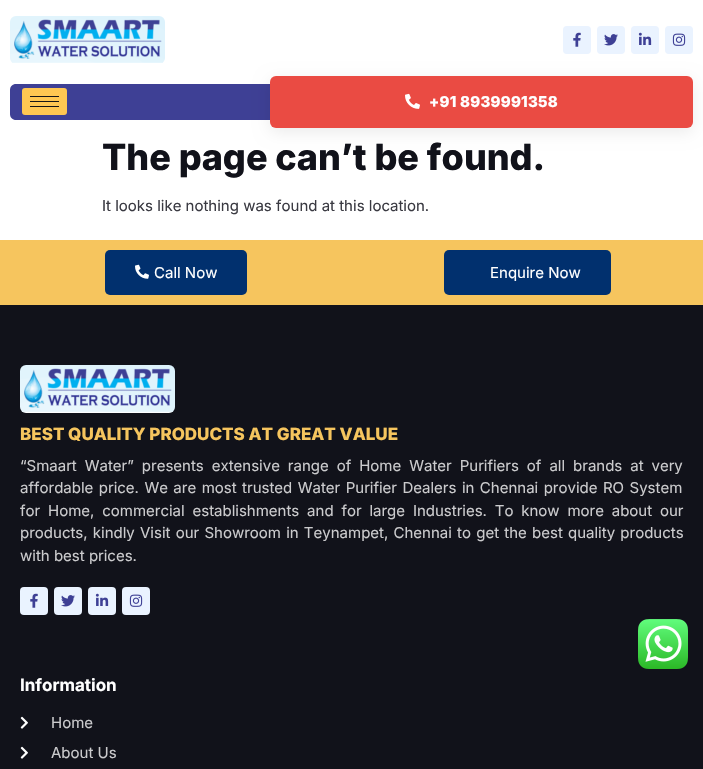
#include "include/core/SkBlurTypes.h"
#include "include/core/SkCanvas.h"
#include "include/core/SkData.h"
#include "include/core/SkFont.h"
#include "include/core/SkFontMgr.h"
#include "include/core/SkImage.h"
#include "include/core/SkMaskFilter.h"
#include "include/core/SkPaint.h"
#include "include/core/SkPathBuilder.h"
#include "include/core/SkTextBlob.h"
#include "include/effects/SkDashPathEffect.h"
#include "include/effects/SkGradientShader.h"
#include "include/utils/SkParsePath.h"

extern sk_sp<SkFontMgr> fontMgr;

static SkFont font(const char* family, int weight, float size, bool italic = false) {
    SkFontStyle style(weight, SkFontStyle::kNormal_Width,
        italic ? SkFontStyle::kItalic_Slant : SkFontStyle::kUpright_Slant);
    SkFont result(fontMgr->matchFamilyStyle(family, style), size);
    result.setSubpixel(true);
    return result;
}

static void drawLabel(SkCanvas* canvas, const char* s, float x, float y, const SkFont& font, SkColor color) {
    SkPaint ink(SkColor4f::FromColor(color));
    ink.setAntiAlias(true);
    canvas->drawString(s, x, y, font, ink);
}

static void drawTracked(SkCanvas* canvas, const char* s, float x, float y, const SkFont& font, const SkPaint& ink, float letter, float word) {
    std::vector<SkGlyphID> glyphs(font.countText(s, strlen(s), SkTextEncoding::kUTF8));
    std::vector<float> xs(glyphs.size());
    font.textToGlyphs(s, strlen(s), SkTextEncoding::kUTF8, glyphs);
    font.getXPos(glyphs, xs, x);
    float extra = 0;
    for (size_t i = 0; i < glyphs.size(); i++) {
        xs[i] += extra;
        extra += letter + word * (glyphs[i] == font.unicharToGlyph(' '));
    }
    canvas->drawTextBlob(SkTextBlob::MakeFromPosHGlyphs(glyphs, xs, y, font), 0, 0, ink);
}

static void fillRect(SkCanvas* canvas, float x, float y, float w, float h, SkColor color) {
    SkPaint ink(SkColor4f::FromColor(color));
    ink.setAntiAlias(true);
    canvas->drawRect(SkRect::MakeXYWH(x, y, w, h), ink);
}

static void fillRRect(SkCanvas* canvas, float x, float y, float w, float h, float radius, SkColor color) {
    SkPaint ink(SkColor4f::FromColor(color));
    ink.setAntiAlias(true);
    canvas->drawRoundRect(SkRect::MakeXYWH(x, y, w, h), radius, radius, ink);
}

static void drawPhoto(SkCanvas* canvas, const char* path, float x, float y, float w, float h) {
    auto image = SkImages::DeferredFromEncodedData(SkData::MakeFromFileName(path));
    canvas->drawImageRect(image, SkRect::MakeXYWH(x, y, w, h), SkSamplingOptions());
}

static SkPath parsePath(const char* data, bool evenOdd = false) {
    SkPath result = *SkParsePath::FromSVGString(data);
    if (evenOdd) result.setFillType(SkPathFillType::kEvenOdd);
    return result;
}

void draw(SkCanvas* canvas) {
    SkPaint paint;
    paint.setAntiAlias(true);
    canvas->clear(0xFFFFFFFF);
    drawPhoto(canvas, "assets/img1.png", 10, 16, 155, 47);
    fillRRect(canvas, 563, 26, 28, 28, 4, 0xFFEAF3FF);
    drawPhoto(canvas, "assets/img2.png", 573, 32, 8, 15);
    fillRRect(canvas, 597, 26, 28, 28, 4, 0xFFEAF3FF);
    drawPhoto(canvas, "assets/img3.png", 604, 34, 14, 12);
    fillRRect(canvas, 631, 26, 28, 28, 4, 0xFFEAF3FF);
    drawPhoto(canvas, "assets/img4.png", 638, 32, 14, 13);
    fillRRect(canvas, 665, 26, 28, 28, 4, 0xFFEAF3FF);
    drawPhoto(canvas, "assets/img5.png", 672, 33, 14, 13);
    paint.setColor(0xFF3E4095);
    canvas->drawPath(parsePath("M16 84H270V120H16C12.5 120 10 117.5 10 114V90C10 86.5 12.5 84 16 84Z"), paint);
    fillRRect(canvas, 22, 88, 45, 27, 3, 0xFFFFC752);
    fillRect(canvas, 30, 96, 29, 1, 0xFF171616);
    fillRect(canvas, 30, 101, 29, 1, 0xFF171616);
    fillRect(canvas, 30, 106, 29, 1, 0xFF171616);
    paint.setColor(0x14000000);
    paint.setMaskFilter(SkMaskFilter::MakeBlur(kNormal_SkBlurStyle, 8));
    canvas->drawRoundRect(SkRect::MakeXYWH(270, 80, 423, 52), 6, 6, paint);
    paint.setMaskFilter(nullptr);
    fillRRect(canvas, 270, 76, 423, 52, 6, 0xFFEA4B43);
    drawPhoto(canvas, "assets/img6.png", 405, 93, 15, 16);
    SkFont font1 = font("Inter", 800, 15);
    paint.setColor(0xFFFFFFFF);
    drawTracked(canvas, "+91 8939991358", 429, 107, font1, paint, 0.25f, 0);
    SkFont font2 = font("Inter", 800, 36);
    drawLabel(canvas, "The page can’t be found.", 102, 170, font2, 0xFF11121A);
    SkFont font3 = font("Inter", 400, 15);
    drawLabel(canvas, "It looks like nothing was found at this location.", 102, 211, font3, 0xFF3A3A42);
    fillRect(canvas, 0, 240, 703, 65, 0xFFF6C55E);
    fillRRect(canvas, 105, 250, 142, 45, 5, 0xFF01306E);
    drawPhoto(canvas, "assets/img7.png", 135, 264, 14, 15);
    drawLabel(canvas, "Call Now", 154, 278, font3, 0xFFFFFFFF);
    fillRRect(canvas, 444, 250, 167, 45, 5, 0xFF01306E);
    drawLabel(canvas, "Enquire Now", 490, 278, font3, 0xFFFFFFFF);
    fillRect(canvas, 0, 305, 703, 464, 0xFF11121A);
    drawPhoto(canvas, "assets/img8.png", 20, 365, 155, 48);
    SkFont font4 = font("Inter", 800, 17);
    drawLabel(canvas, "BEST QUALITY PRODUCTS AT GREAT VALUE", 20, 440, font4, 0xFFF6C55E);
    paint.setColor(0xFFCBCBCD);
    drawTracked(canvas, "“Smaart Water” presents extensive range of Home Water Purifiers of all brands at very", 20, 471, font3, paint, 0, 3.75f);
    drawTracked(canvas, "affordable price. We are most trusted Water Purifier Dealers in Chennai provide RO System", 20, 493, font3, paint, 0, 1.25f);
    drawTracked(canvas, "for Home, commercial establishments and for large Industries. To know more about our", 20, 516, font3, paint, 0, 3.6f);
    drawTracked(canvas, "products, kindly Visit our Showroom in Teynampet, Chennai to get the best quality products", 20, 538, font3, paint, 0, 1);
    drawLabel(canvas, "with best prices.", 20, 561, font3, 0xFFCBCBCD);
    fillRRect(canvas, 20, 587, 28, 28, 4, 0xFFEAF3FF);
    drawPhoto(canvas, "assets/img2.png", 30, 593, 8, 15);
    fillRRect(canvas, 54, 587, 28, 28, 4, 0xFFEAF3FF);
    drawPhoto(canvas, "assets/img3.png", 61, 595, 14, 12);
    fillRRect(canvas, 88, 587, 28, 28, 4, 0xFFEAF3FF);
    drawPhoto(canvas, "assets/img4.png", 95, 593, 14, 13);
    fillRRect(canvas, 122, 587, 28, 28, 4, 0xFFEAF3FF);
    drawPhoto(canvas, "assets/img5.png", 129, 594, 14, 13);
    SkFont font5 = font("Inter", 700, 17);
    drawLabel(canvas, "Information", 20, 691, font5, 0xFFFFFFFF);
    drawPhoto(canvas, "assets/img9.png", 20, 716, 8, 13);
    drawLabel(canvas, "Home", 51, 728, font3, 0xFFCBCBCD);
    drawPhoto(canvas, "assets/img9.png", 20, 746, 8, 13);
    drawLabel(canvas, "About Us", 51, 758, font3, 0xFFCBCBCD);
    drawPhoto(canvas, "assets/img10.png", 638, 619, 50, 50);
}
